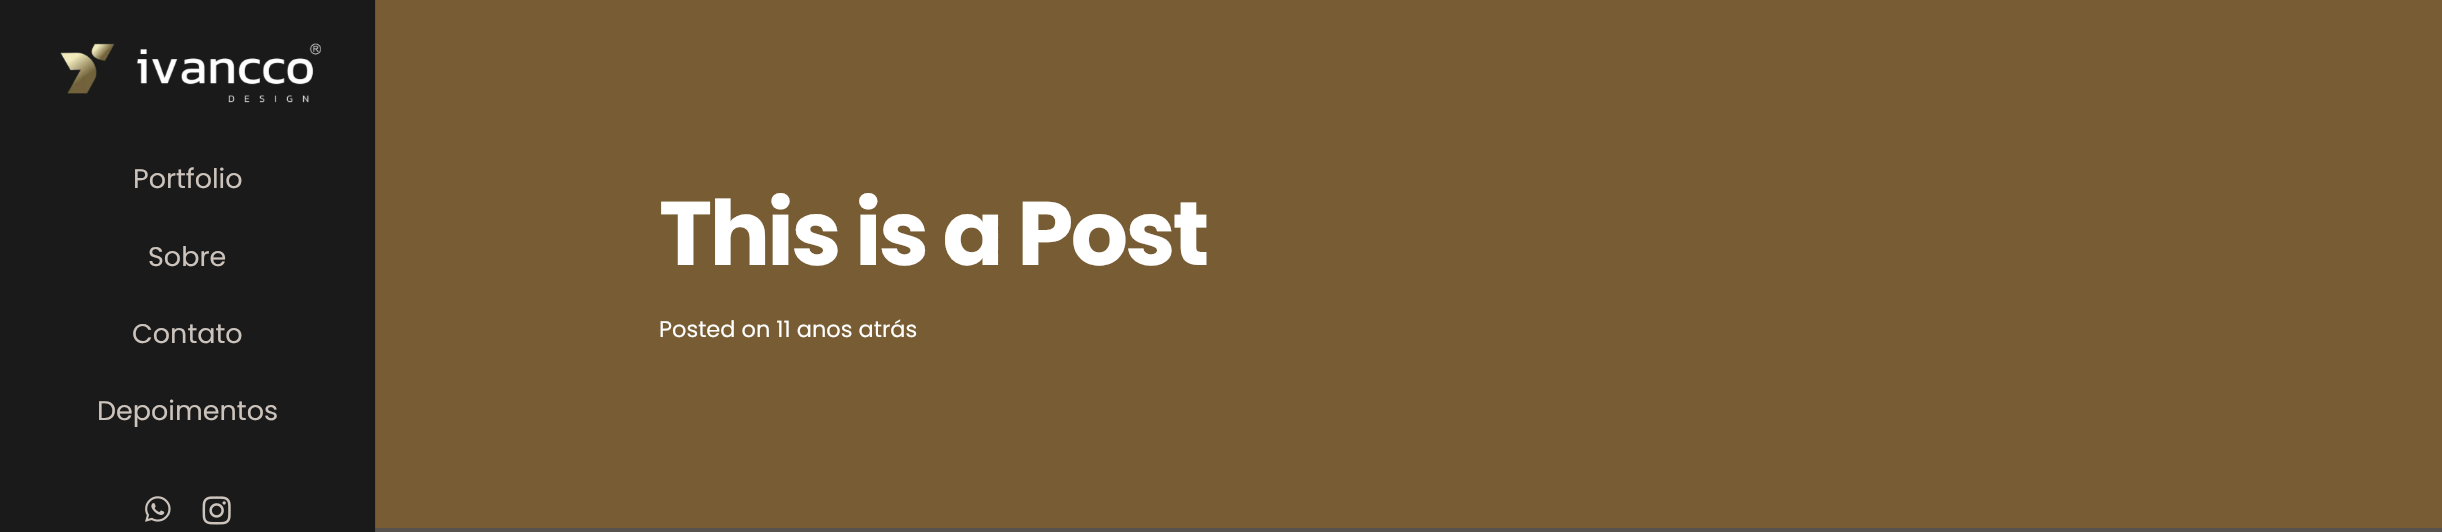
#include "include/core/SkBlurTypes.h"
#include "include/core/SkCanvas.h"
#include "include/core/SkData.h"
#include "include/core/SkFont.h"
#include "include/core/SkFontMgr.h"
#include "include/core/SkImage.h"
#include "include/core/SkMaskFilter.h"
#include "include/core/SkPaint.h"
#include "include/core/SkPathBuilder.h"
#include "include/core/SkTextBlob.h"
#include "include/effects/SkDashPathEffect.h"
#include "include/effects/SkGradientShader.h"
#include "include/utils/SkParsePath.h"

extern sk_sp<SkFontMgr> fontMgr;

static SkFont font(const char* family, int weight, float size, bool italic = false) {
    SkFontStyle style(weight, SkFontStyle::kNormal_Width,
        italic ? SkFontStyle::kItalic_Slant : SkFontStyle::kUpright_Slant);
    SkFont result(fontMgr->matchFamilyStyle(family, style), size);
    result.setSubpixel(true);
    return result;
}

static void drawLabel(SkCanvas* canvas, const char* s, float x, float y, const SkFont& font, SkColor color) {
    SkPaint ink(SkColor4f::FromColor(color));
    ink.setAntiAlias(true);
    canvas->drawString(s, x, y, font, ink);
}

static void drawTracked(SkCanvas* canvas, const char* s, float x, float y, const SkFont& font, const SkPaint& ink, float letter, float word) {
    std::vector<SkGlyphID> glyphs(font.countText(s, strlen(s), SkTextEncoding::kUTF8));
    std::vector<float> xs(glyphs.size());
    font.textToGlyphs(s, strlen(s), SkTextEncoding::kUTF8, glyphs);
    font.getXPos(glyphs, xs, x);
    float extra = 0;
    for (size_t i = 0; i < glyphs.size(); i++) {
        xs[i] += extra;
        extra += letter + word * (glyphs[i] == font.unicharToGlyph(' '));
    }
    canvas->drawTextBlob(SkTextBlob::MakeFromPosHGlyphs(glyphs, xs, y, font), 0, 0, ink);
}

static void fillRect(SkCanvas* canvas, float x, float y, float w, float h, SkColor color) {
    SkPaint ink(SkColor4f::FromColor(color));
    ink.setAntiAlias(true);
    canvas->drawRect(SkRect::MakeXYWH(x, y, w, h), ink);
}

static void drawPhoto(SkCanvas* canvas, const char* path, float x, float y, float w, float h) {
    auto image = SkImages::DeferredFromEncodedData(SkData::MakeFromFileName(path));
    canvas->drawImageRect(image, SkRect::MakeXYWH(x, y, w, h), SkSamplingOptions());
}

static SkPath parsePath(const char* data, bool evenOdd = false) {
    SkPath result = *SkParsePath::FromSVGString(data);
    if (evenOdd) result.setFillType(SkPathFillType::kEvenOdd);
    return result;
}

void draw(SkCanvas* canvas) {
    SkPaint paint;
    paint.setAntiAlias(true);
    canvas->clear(0xFF57524E);
    fillRect(canvas, 375, 0, 2067, 528, 0xFF785D34);
    paint.setColor(0x14000000);
    canvas->drawPath(parsePath("M1 532V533H376V0H375V532Z"), paint);
    fillRect(canvas, 0, 0, 375, 532, 0xFF1A1A1A);
    drawPhoto(canvas, "assets/img1.png", 60, 43, 261, 60);
    SkFont font1 = font("Poppins", 400, 27);
    drawLabel(canvas, "Portfolio", 133, 188, font1, 0xFFCCC4BC);
    drawLabel(canvas, "Sobre", 148, 266, font1, 0xFFCCC4BC);
    drawLabel(canvas, "Contato", 132, 343, font1, 0xFFCCC4BC);
    drawLabel(canvas, "Depoimentos", 97, 420, font1, 0xFFCCC4BC);
    drawPhoto(canvas, "assets/img2.png", 145, 496, 26, 26);
    drawPhoto(canvas, "assets/img3.png", 202, 496, 29, 29);
    SkFont font2 = font("Poppins", 700, 90);
    paint.setColor(0xFFFFFFFF);
    drawTracked(canvas, "This is a Post", 659, 265, font2, paint, -2.75f, 0);
    SkFont font3 = font("Poppins", 400, 22.5f);
    drawLabel(canvas, "Posted on 11 anos atrás", 659, 337, font3, 0xFFFFFFFF);
}
